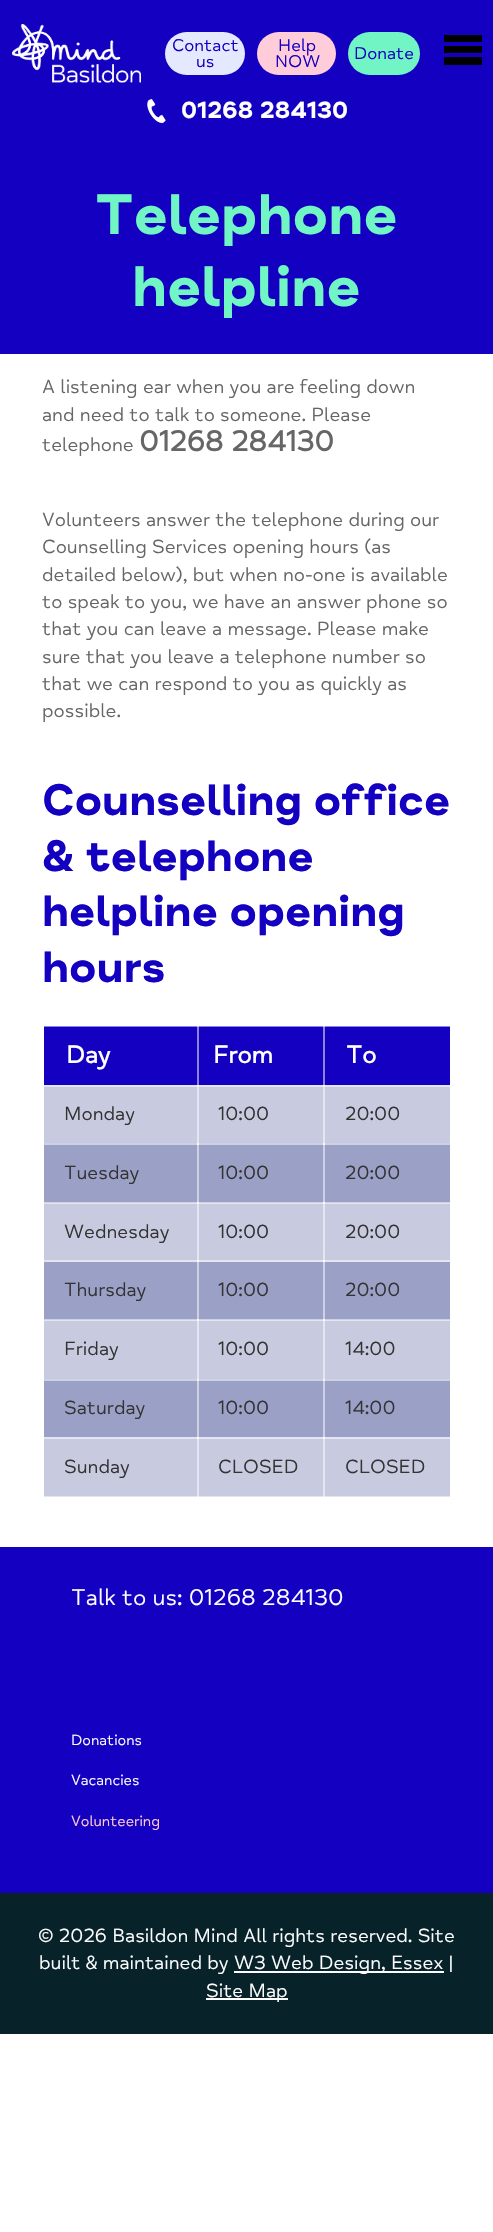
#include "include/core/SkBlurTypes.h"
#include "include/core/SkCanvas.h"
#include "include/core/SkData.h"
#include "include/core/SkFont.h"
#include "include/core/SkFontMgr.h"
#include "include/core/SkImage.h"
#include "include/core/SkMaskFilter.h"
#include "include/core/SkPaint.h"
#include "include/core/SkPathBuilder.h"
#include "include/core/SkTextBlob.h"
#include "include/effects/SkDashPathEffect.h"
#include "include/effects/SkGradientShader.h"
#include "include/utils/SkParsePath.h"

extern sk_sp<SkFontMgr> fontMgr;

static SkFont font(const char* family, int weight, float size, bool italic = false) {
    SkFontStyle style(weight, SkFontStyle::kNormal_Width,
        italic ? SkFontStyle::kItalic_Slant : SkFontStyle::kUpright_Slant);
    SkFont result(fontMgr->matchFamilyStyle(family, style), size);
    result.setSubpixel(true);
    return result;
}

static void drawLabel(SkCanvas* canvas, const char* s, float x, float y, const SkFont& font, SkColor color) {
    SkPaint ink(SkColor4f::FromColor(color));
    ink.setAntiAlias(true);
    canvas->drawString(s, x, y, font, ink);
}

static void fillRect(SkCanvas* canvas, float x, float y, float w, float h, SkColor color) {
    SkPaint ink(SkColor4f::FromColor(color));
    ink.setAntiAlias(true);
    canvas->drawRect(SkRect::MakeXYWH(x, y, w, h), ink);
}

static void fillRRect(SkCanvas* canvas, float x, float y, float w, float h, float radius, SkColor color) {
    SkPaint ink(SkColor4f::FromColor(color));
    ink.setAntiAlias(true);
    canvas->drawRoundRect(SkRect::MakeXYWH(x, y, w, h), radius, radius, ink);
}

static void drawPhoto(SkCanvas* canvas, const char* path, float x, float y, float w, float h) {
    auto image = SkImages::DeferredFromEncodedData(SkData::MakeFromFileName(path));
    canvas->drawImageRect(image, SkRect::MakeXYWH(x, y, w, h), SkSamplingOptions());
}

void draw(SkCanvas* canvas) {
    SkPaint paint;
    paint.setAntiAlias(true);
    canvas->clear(0xFFFFFFFF);
    fillRect(canvas, 0, 0, 493, 354, 0xFF1300C1);
    drawPhoto(canvas, "assets/img1.png", 12, 24, 129, 59);
    fillRRect(canvas, 165, 32, 80, 43, 21.5f, 0xFFE5E9FF);
    SkFont font1 = font("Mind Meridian", 400, 17.5f);
    drawLabel(canvas, "Contact", 172, 51, font1, 0xFF1300C1);
    drawLabel(canvas, "us", 196, 67, font1, 0xFF1300C1);
    fillRRect(canvas, 257, 32, 79, 43, 21.5f, 0xFFFFCDD9);
    drawLabel(canvas, "Help", 278, 51, font1, 0xFF1300C1);
    drawLabel(canvas, "NOW", 275, 67, font1, 0xFF1300C1);
    fillRRect(canvas, 348, 32, 72, 43, 21.5f, 0xFF71F5C4);
    drawLabel(canvas, "Donate", 354, 59, font1, 0xFF1300C1);
    fillRect(canvas, 444, 35, 38, 7, 0xFF000000);
    fillRect(canvas, 444, 46, 38, 7, 0xFF000000);
    fillRect(canvas, 444, 57, 38, 8, 0xFF000000);
    drawPhoto(canvas, "assets/img2.png", 147, 99, 19, 24);
    SkFont font2 = font("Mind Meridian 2", 700, 24);
    drawLabel(canvas, "01268 284130", 181, 118, font2, 0xFFFFFFFF);
    SkFont font3 = font("Mind Meridian 2", 400, 58.5f);
    drawLabel(canvas, "Telephone", 95, 234, font3, 0xFF71F5C4);
    drawLabel(canvas, "helpline", 132, 306, font3, 0xFF71F5C4);
    SkFont font4 = font("Mind Meridian", 400, 19.5f);
    drawLabel(canvas, "A listening ear when you are feeling down", 42, 393, font4, 0xFF666666);
    drawLabel(canvas, "and need to talk to someone. Please", 42, 421, font4, 0xFF666666);
    drawLabel(canvas, "telephone", 42, 451, font4, 0xFF666666);
    SkFont font5 = font("Mind Meridian", 700, 29.25f);
    drawLabel(canvas, "01268 284130", 139, 451, font5, 0xFF666666);
    drawLabel(canvas, "Volunteers answer the telephone during our", 42, 526, font4, 0xFF666666);
    drawLabel(canvas, "Counselling Services opening hours (as", 42, 553, font4, 0xFF666666);
    drawLabel(canvas, "detailed below), but when no-one is available", 42, 581, font4, 0xFF666666);
    drawLabel(canvas, "to speak to you, we have an answer phone so", 42, 608, font4, 0xFF666666);
    drawLabel(canvas, "that you can leave a message. Please make", 42, 635, font4, 0xFF666666);
    drawLabel(canvas, "sure that you leave a telephone number so", 42, 663, font4, 0xFF666666);
    drawLabel(canvas, "that we can respond to you as quickly as", 42, 690, font4, 0xFF666666);
    drawLabel(canvas, "possible.", 42, 717, font4, 0xFF666666);
    SkFont font6 = font("Mind Meridian 2", 700, 45);
    drawLabel(canvas, "Counselling office", 42, 815, font6, 0xFF1300C1);
    drawLabel(canvas, "& telephone", 42, 871, font6, 0xFF1300C1);
    drawLabel(canvas, "helpline opening", 42, 926, font6, 0xFF1300C1);
    drawLabel(canvas, "hours", 42, 982, font6, 0xFF1300C1);
    fillRect(canvas, 44, 1027, 153, 58, 0xFF1300C1);
    fillRect(canvas, 44, 1026, 153, 1, 0xFF8C82E1);
    SkFont font7 = font("Mind Meridian", 700, 25);
    drawLabel(canvas, "Day", 66, 1063, font7, 0xFFFFFFFF);
    fillRect(canvas, 199, 1027, 124, 58, 0xFF1300C1);
    fillRect(canvas, 197, 1026, 2, 59, 0xFF8C82E1);
    fillRect(canvas, 323, 1026, 2, 59, 0xFF8C82E1);
    fillRect(canvas, 197, 1026, 253, 1, 0xFF8C82E1);
    fillRect(canvas, 197, 1026, 2, 1, 0xFFC7C2F0);
    fillRect(canvas, 197, 1026, 1, 1, 0xFFD8D4F5);
    fillRect(canvas, 323, 1026, 1, 1, 0xFFD8D4F5);
    drawLabel(canvas, "From", 213, 1063, font7, 0xFFFFFFFF);
    fillRect(canvas, 325, 1027, 125, 58, 0xFF1300C1);
    fillRect(canvas, 324, 1026, 1, 1, 0xFFC7C2F0);
    drawLabel(canvas, "To", 346, 1063, font7, 0xFFFFFFFF);
    fillRect(canvas, 44, 1087, 153, 56, 0xFFC8CADF);
    fillRect(canvas, 44, 1085, 153, 2, 0xFFE4E5F0);
    drawLabel(canvas, "Monday", 64, 1120, font4, 0xFF333333);
    fillRect(canvas, 199, 1087, 124, 56, 0xFFC8CADF);
    fillRect(canvas, 197, 1085, 2, 58, 0xFFE4E5F0);
    fillRect(canvas, 197, 1085, 127, 2, 0xFFE4E5F0);
    fillRect(canvas, 197, 1086, 2, 1, 0xFFF2F2F8);
    fillRect(canvas, 197, 1085, 2, 1, 0xFFF9F9FC);
    fillRect(canvas, 197, 1085, 1, 2, 0xFFF9F9FC);
    fillRect(canvas, 197, 1085, 1, 1, 0xFFFCFCFE);
    fillRect(canvas, 323, 1085, 2, 58, 0xFFE4E5F0);
    fillRect(canvas, 323, 1085, 1, 2, 0xFFF9F9FC);
    fillRect(canvas, 323, 1085, 1, 1, 0xFFFCFCFE);
    drawLabel(canvas, "10:00", 218, 1120, font4, 0xFF333333);
    fillRect(canvas, 325, 1087, 125, 56, 0xFFC8CADF);
    fillRect(canvas, 324, 1085, 126, 2, 0xFFE4E5F0);
    fillRect(canvas, 324, 1085, 1, 2, 0xFFF2F2F8);
    fillRect(canvas, 324, 1085, 1, 1, 0xFFF9F9FC);
    drawLabel(canvas, "20:00", 345, 1120, font4, 0xFF333333);
    fillRect(canvas, 44, 1145, 153, 57, 0xFF9BA0C6);
    fillRect(canvas, 44, 1143, 153, 2, 0xFFCED1E3);
    fillRect(canvas, 44, 1202, 153, 1, 0xFFCED1E3);
    drawLabel(canvas, "Tuesday", 64, 1179, font4, 0xFF333333);
    fillRect(canvas, 199, 1145, 124, 57, 0xFF9BA0C6);
    fillRect(canvas, 197, 1143, 2, 60, 0xFFCED1E3);
    fillRect(canvas, 197, 1143, 127, 2, 0xFFCED1E3);
    fillRect(canvas, 197, 1143, 2, 2, 0xFFF3F5F8);
    fillRect(canvas, 197, 1143, 1, 2, 0xFFF9FAFC);
    fillRect(canvas, 323, 1143, 2, 60, 0xFFCED1E3);
    fillRect(canvas, 323, 1143, 1, 2, 0xFFF9FAFC);
    fillRect(canvas, 197, 1202, 253, 1, 0xFFCED1E3);
    fillRect(canvas, 197, 1202, 2, 1, 0xFFF3F5F8);
    fillRect(canvas, 197, 1202, 1, 1, 0xFFF9FAFC);
    fillRect(canvas, 323, 1202, 1, 1, 0xFFF9FAFC);
    drawLabel(canvas, "10:00", 218, 1179, font4, 0xFF333333);
    fillRect(canvas, 325, 1145, 125, 57, 0xFF9BA0C6);
    fillRect(canvas, 324, 1143, 126, 2, 0xFFCED1E3);
    fillRect(canvas, 324, 1143, 1, 2, 0xFFF3F5F8);
    fillRect(canvas, 324, 1202, 1, 1, 0xFFF3F5F8);
    drawLabel(canvas, "20:00", 345, 1179, font4, 0xFF333333);
    fillRect(canvas, 44, 1204, 153, 56, 0xFFC8CADF);
    fillRect(canvas, 44, 1203, 153, 1, 0xFFE4E5F0);
    fillRect(canvas, 44, 1260, 153, 2, 0xFFE4E5F0);
    drawLabel(canvas, "Wednesday", 64, 1238, font4, 0xFF333333);
    fillRect(canvas, 199, 1204, 124, 56, 0xFFC8CADF);
    fillRect(canvas, 197, 1203, 2, 59, 0xFFE4E5F0);
    fillRect(canvas, 197, 1203, 127, 1, 0xFFE4E5F0);
    fillRect(canvas, 197, 1203, 2, 1, 0xFFF2F2F8);
    fillRect(canvas, 197, 1203, 1, 1, 0xFFF9F9FC);
    fillRect(canvas, 323, 1203, 2, 59, 0xFFE4E5F0);
    fillRect(canvas, 323, 1203, 1, 1, 0xFFF9F9FC);
    fillRect(canvas, 197, 1260, 253, 2, 0xFFE4E5F0);
    fillRect(canvas, 197, 1260, 2, 2, 0xFFF9F9FC);
    fillRect(canvas, 197, 1260, 1, 2, 0xFFFCFCFE);
    fillRect(canvas, 323, 1260, 1, 2, 0xFFFCFCFE);
    drawLabel(canvas, "10:00", 218, 1238, font4, 0xFF333333);
    fillRect(canvas, 325, 1204, 125, 56, 0xFFC8CADF);
    fillRect(canvas, 324, 1203, 126, 1, 0xFFE4E5F0);
    fillRect(canvas, 324, 1203, 1, 1, 0xFFF2F2F8);
    fillRect(canvas, 324, 1260, 1, 2, 0xFFF9F9FC);
    drawLabel(canvas, "20:00", 345, 1238, font4, 0xFF333333);
    fillRect(canvas, 44, 1262, 153, 57, 0xFF9BA0C6);
    fillRect(canvas, 44, 1319, 153, 1, 0xFFCED1E3);
    drawLabel(canvas, "Thursday", 64, 1296, font4, 0xFF333333);
    fillRect(canvas, 199, 1262, 124, 57, 0xFF9BA0C6);
    fillRect(canvas, 197, 1262, 2, 58, 0xFFCED1E3);
    fillRect(canvas, 323, 1262, 2, 58, 0xFFCED1E3);
    fillRect(canvas, 197, 1319, 253, 1, 0xFFCED1E3);
    fillRect(canvas, 197, 1319, 2, 1, 0xFFF3F5F8);
    fillRect(canvas, 197, 1319, 1, 1, 0xFFF9FAFC);
    fillRect(canvas, 323, 1319, 1, 1, 0xFFF9FAFC);
    drawLabel(canvas, "10:00", 218, 1296, font4, 0xFF333333);
    fillRect(canvas, 325, 1262, 125, 57, 0xFF9BA0C6);
    fillRect(canvas, 324, 1319, 1, 1, 0xFFF3F5F8);
    drawLabel(canvas, "20:00", 345, 1296, font4, 0xFF333333);
    fillRect(canvas, 44, 1321, 153, 58, 0xFFC8CADF);
    fillRect(canvas, 44, 1320, 153, 1, 0xFFE4E5F0);
    drawLabel(canvas, "Friday", 64, 1355, font4, 0xFF333333);
    fillRect(canvas, 199, 1321, 124, 58, 0xFFC8CADF);
    fillRect(canvas, 197, 1320, 2, 59, 0xFFE4E5F0);
    fillRect(canvas, 197, 1320, 127, 1, 0xFFE4E5F0);
    fillRect(canvas, 197, 1320, 2, 1, 0xFFF2F2F8);
    fillRect(canvas, 197, 1320, 1, 1, 0xFFF9F9FC);
    fillRect(canvas, 323, 1320, 2, 59, 0xFFE4E5F0);
    fillRect(canvas, 323, 1320, 1, 1, 0xFFF9F9FC);
    drawLabel(canvas, "10:00", 218, 1355, font4, 0xFF333333);
    fillRect(canvas, 325, 1321, 125, 58, 0xFFC8CADF);
    fillRect(canvas, 324, 1320, 126, 1, 0xFFE4E5F0);
    fillRect(canvas, 324, 1320, 1, 1, 0xFFF2F2F8);
    drawLabel(canvas, "14:00", 345, 1355, font4, 0xFF333333);
    fillRect(canvas, 44, 1381, 153, 56, 0xFF9BA0C6);
    fillRect(canvas, 44, 1379, 153, 2, 0xFFCED1E3);
    drawLabel(canvas, "Saturday", 64, 1414, font4, 0xFF333333);
    fillRect(canvas, 199, 1381, 124, 56, 0xFF9BA0C6);
    fillRect(canvas, 197, 1379, 2, 58, 0xFFCED1E3);
    fillRect(canvas, 197, 1379, 127, 2, 0xFFCED1E3);
    fillRect(canvas, 197, 1380, 2, 1, 0xFFE7E9F1);
    fillRect(canvas, 197, 1379, 2, 1, 0xFFF3F5F8);
    fillRect(canvas, 197, 1379, 1, 2, 0xFFF3F5F8);
    fillRect(canvas, 197, 1379, 1, 1, 0xFFF9FAFC);
    fillRect(canvas, 323, 1379, 2, 58, 0xFFCED1E3);
    fillRect(canvas, 323, 1379, 1, 2, 0xFFF3F5F8);
    fillRect(canvas, 323, 1379, 1, 1, 0xFFF9FAFC);
    drawLabel(canvas, "10:00", 218, 1414, font4, 0xFF333333);
    fillRect(canvas, 325, 1381, 125, 56, 0xFF9BA0C6);
    fillRect(canvas, 324, 1379, 126, 2, 0xFFCED1E3);
    fillRect(canvas, 324, 1379, 1, 2, 0xFFE7E9F1);
    fillRect(canvas, 324, 1379, 1, 1, 0xFFF3F5F8);
    drawLabel(canvas, "14:00", 345, 1414, font4, 0xFF333333);
    fillRect(canvas, 44, 1439, 153, 57, 0xFFC8CADF);
    fillRect(canvas, 44, 1437, 153, 2, 0xFFE4E5F0);
    fillRect(canvas, 44, 1496, 153, 1, 0xFFE4E5F0);
    drawLabel(canvas, "Sunday", 64, 1473, font4, 0xFF333333);
    fillRect(canvas, 199, 1439, 124, 57, 0xFFC8CADF);
    fillRect(canvas, 197, 1437, 2, 60, 0xFFE4E5F0);
    fillRect(canvas, 197, 1437, 127, 2, 0xFFE4E5F0);
    fillRect(canvas, 197, 1437, 2, 2, 0xFFF9F9FC);
    fillRect(canvas, 197, 1437, 1, 2, 0xFFFCFCFE);
    fillRect(canvas, 323, 1437, 2, 60, 0xFFE4E5F0);
    fillRect(canvas, 323, 1437, 1, 2, 0xFFFCFCFE);
    fillRect(canvas, 197, 1496, 253, 1, 0xFFE4E5F0);
    fillRect(canvas, 197, 1496, 2, 1, 0xFFF2F2F8);
    fillRect(canvas, 197, 1496, 1, 1, 0xFFF6F6FA);
    fillRect(canvas, 323, 1496, 1, 1, 0xFFF6F6FA);
    drawLabel(canvas, "CLOSED", 218, 1473, font4, 0xFF333333);
    fillRect(canvas, 325, 1439, 125, 57, 0xFFC8CADF);
    fillRect(canvas, 324, 1437, 126, 2, 0xFFE4E5F0);
    fillRect(canvas, 324, 1437, 1, 2, 0xFFF9F9FC);
    fillRect(canvas, 324, 1496, 1, 1, 0xFFF2F2F8);
    drawLabel(canvas, "CLOSED", 345, 1473, font4, 0xFF333333);
    fillRect(canvas, 0, 1547, 493, 346, 0xFF1300C1);
    SkFont font8 = font("Mind Meridian", 400, 23.25f);
    drawLabel(canvas, "Talk to us: 01268 284130", 71, 1605, font8, 0xFFFFFFFF);
    SkFont font9 = font("Mind Meridian", 400, 15);
    drawLabel(canvas, "Donations", 71, 1745, font9, 0xFFFFFFFF);
    drawLabel(canvas, "Vacancies", 71, 1785, font9, 0xFFFFFFFF);
    drawLabel(canvas, "Volunteering", 71, 1826, font9, 0xFFFFCDD9);
    fillRect(canvas, 0, 1893, 493, 141, 0xFF08222A);
    drawLabel(canvas, "© 2026 Basildon Mind All rights reserved. Site", 38, 1942, font4, 0xFFFFFFFF);
    drawLabel(canvas, "built & maintained by", 39, 1969, font4, 0xFFFFFFFF);
    fillRect(canvas, 234, 1971, 210, 2, 0xFFFFFFFF);
    drawLabel(canvas, "W3 Web Design, Essex |", 234, 1969, font4, 0xFFFFFFFF);
    fillRect(canvas, 206, 1998, 82, 2, 0xFFFFFFFF);
    drawLabel(canvas, "Site Map", 206, 1997, font4, 0xFFFFFFFF);
}
